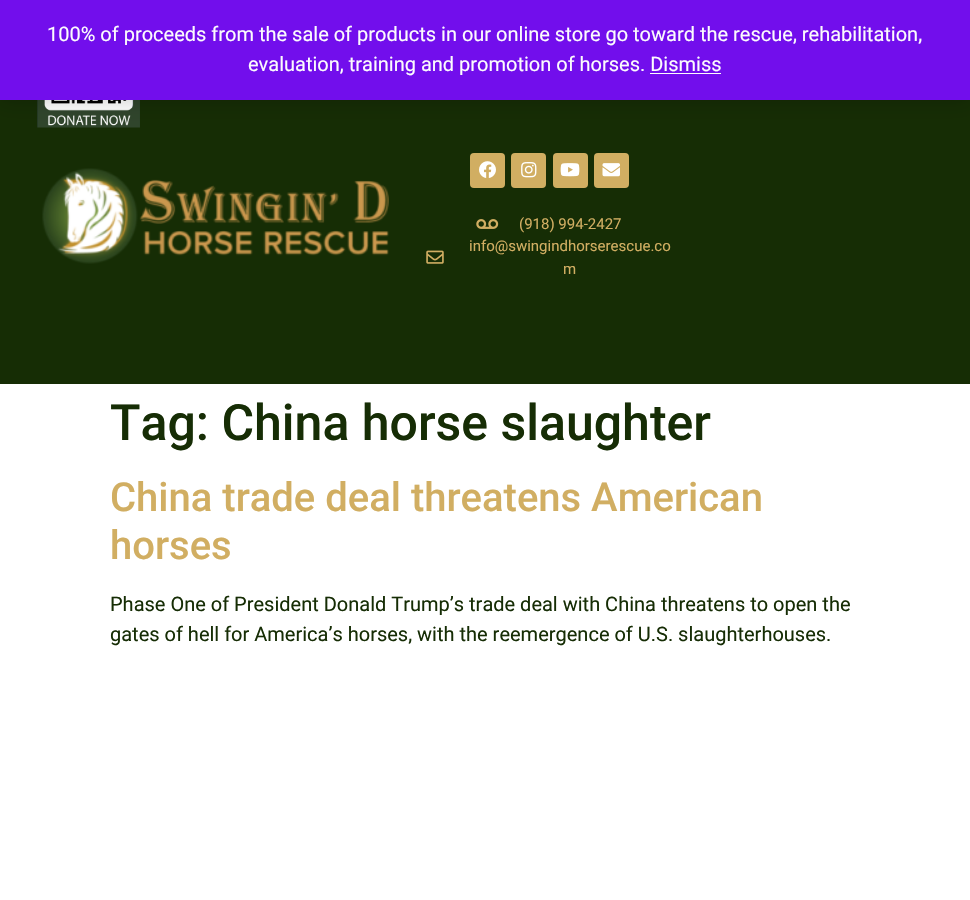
#include "include/core/SkBlurTypes.h"
#include "include/core/SkCanvas.h"
#include "include/core/SkData.h"
#include "include/core/SkFont.h"
#include "include/core/SkFontMgr.h"
#include "include/core/SkImage.h"
#include "include/core/SkMaskFilter.h"
#include "include/core/SkPaint.h"
#include "include/core/SkPathBuilder.h"
#include "include/core/SkTextBlob.h"
#include "include/effects/SkDashPathEffect.h"
#include "include/effects/SkGradientShader.h"
#include "include/utils/SkParsePath.h"

extern sk_sp<SkFontMgr> fontMgr;

static SkFont font(const char* family, int weight, float size, bool italic = false) {
    SkFontStyle style(weight, SkFontStyle::kNormal_Width,
        italic ? SkFontStyle::kItalic_Slant : SkFontStyle::kUpright_Slant);
    SkFont result(fontMgr->matchFamilyStyle(family, style), size);
    result.setSubpixel(true);
    return result;
}

static void drawLabel(SkCanvas* canvas, const char* s, float x, float y, const SkFont& font, SkColor color) {
    SkPaint ink(SkColor4f::FromColor(color));
    ink.setAntiAlias(true);
    canvas->drawString(s, x, y, font, ink);
}

static void fillRect(SkCanvas* canvas, float x, float y, float w, float h, SkColor color) {
    SkPaint ink(SkColor4f::FromColor(color));
    ink.setAntiAlias(true);
    canvas->drawRect(SkRect::MakeXYWH(x, y, w, h), ink);
}

static void fillRRect(SkCanvas* canvas, float x, float y, float w, float h, float radius, SkColor color) {
    SkPaint ink(SkColor4f::FromColor(color));
    ink.setAntiAlias(true);
    canvas->drawRoundRect(SkRect::MakeXYWH(x, y, w, h), radius, radius, ink);
}

static void drawPhoto(SkCanvas* canvas, const char* path, float x, float y, float w, float h) {
    auto image = SkImages::DeferredFromEncodedData(SkData::MakeFromFileName(path));
    canvas->drawImageRect(image, SkRect::MakeXYWH(x, y, w, h), SkSamplingOptions());
}

void draw(SkCanvas* canvas) {
    SkPaint paint;
    paint.setAntiAlias(true);
    canvas->clear(0xFFFFFFFF);
    fillRect(canvas, 0, 100, 970, 284, 0xFF162D05);
    drawPhoto(canvas, "assets/img1.png", 37, 100, 103, 28);
    paint.setColor(0x33000000);
    paint.setMaskFilter(SkMaskFilter::MakeBlur(kNormal_SkBlurStyle, 10));
    canvas->drawRect(SkRect::MakeXYWH(0, 1, 970, 100), paint);
    paint.setMaskFilter(nullptr);
    fillRect(canvas, 0, 0, 970, 100, 0xFF720EEC);
    SkFont font1 = font("Roboto", 400, 20);
    drawLabel(canvas, "100% of proceeds from the sale of products in our online store go toward the rescue, rehabilitation,", 47, 41, font1, 0xFFFCFBFE);
    drawLabel(canvas, "evaluation, training and promotion of horses. Dismiss", 248, 71, font1, 0xFFFCFBFE);
    fillRect(canvas, 650, 73, 71, 1, 0xFFFCFBFE);
    drawPhoto(canvas, "assets/img2.png", 42, 168, 347, 96);
    fillRRect(canvas, 470, 153, 35, 35, 4, 0xFFD1AE62);
    drawPhoto(canvas, "assets/img3.png", 479, 161, 17, 17);
    fillRRect(canvas, 511, 153, 35, 35, 4, 0xFFD1AE62);
    drawPhoto(canvas, "assets/img4.png", 521, 162, 16, 16);
    fillRRect(canvas, 553, 153, 35, 35, 4, 0xFFD1AE62);
    drawPhoto(canvas, "assets/img5.png", 560, 163, 20, 14);
    fillRRect(canvas, 594, 153, 35, 35, 4, 0xFFD1AE62);
    drawPhoto(canvas, "assets/img6.png", 602, 163, 18, 14);
    drawPhoto(canvas, "assets/img7.png", 476, 219, 23, 10);
    SkFont font2 = font("Roboto", 400, 15);
    drawLabel(canvas, "(918) 994-2427", 519, 229, font2, 0xFFD1AE62);
    drawPhoto(canvas, "assets/img8.png", 426, 250, 18, 14);
    drawLabel(canvas, "info@swingindhorserescue.co", 469, 251, font2, 0xFFD1AE62);
    drawLabel(canvas, "m", 563, 274, font2, 0xFFD1AE62);
    SkFont font3 = font("Roboto", 500, 50);
    drawLabel(canvas, "Tag: China horse slaughter", 110, 440, font3, 0xFF162D05);
    SkFont font4 = font("Roboto", 500, 40);
    drawLabel(canvas, "China trade deal threatens American", 110, 511, font4, 0xFFD1AE62);
    drawLabel(canvas, "horses", 110, 559, font4, 0xFFD1AE62);
    drawLabel(canvas, "Phase One of President Donald Trump’s trade deal with China threatens to open the", 110, 611, font1, 0xFF162D05);
    drawLabel(canvas, "gates of hell for America’s horses, with the reemergence of U.S. slaughterhouses.", 110, 641, font1, 0xFF162D05);
}
